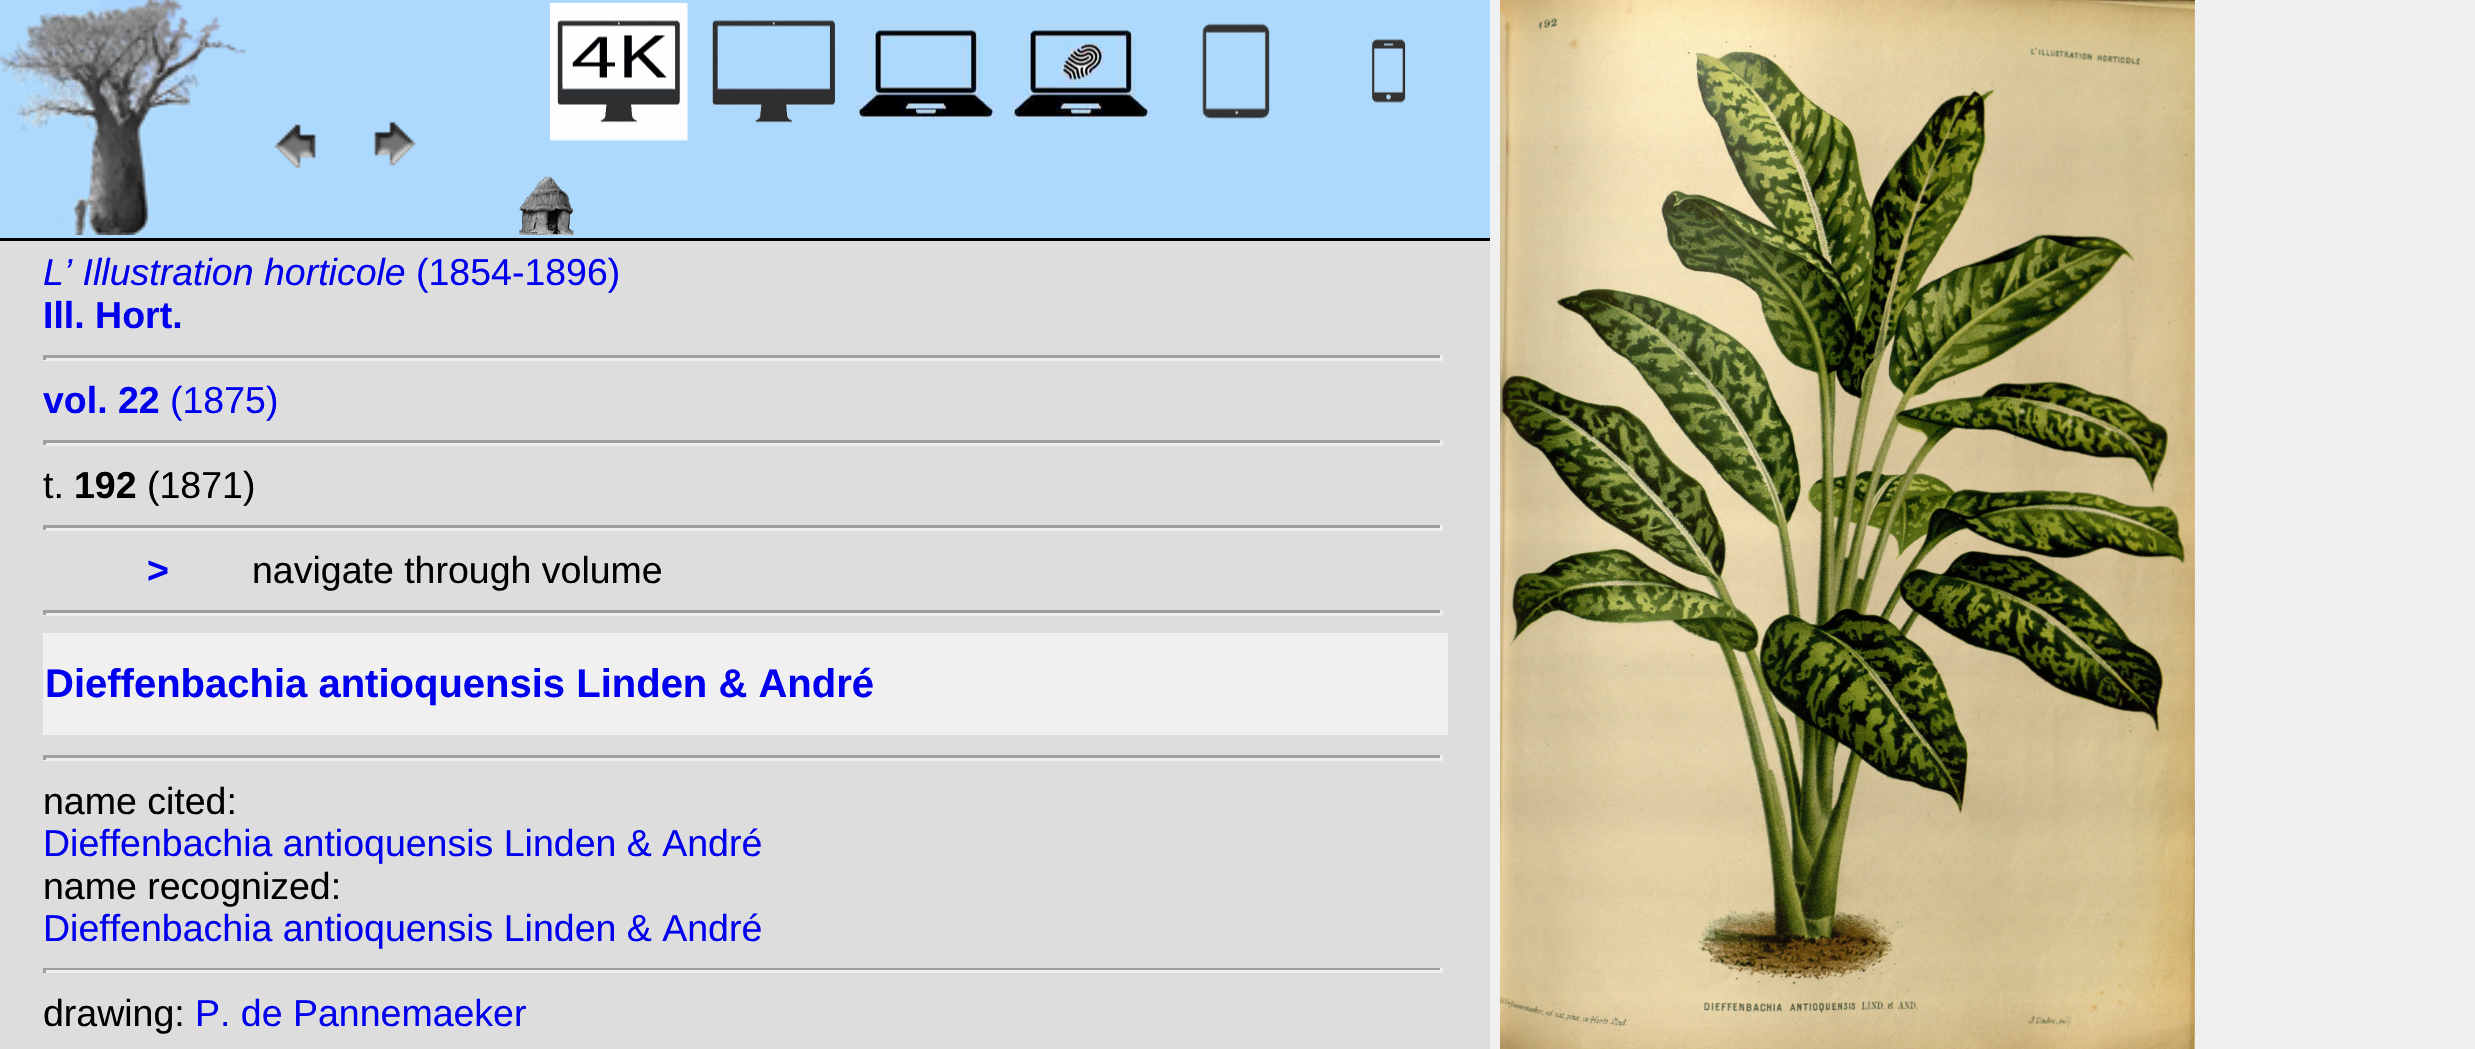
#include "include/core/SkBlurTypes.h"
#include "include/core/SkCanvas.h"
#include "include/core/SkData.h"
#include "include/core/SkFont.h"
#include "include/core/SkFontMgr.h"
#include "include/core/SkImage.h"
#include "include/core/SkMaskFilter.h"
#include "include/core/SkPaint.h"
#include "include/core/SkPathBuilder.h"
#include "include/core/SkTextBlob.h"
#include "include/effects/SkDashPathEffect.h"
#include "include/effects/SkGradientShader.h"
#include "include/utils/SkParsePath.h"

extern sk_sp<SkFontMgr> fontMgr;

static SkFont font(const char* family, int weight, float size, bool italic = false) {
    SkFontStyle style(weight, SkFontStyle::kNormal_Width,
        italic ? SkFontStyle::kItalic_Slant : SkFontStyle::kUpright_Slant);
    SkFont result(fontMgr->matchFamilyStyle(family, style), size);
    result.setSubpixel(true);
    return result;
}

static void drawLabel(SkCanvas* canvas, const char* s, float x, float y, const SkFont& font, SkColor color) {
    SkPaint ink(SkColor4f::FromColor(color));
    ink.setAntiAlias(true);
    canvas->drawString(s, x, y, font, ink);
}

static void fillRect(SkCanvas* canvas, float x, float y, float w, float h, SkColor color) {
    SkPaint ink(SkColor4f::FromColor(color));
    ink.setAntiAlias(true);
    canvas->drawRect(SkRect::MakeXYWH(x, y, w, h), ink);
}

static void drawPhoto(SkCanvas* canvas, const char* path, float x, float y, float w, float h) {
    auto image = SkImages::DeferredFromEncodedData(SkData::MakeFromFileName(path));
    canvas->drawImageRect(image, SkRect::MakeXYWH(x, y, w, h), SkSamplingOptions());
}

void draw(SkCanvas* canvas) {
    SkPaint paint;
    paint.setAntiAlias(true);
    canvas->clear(0xFFF0F0F0);
    fillRect(canvas, 0, 241, 1490, 808, 0xFFDDDDDD);
    fillRect(canvas, 0, 0, 1490, 238, 0xFFADD9FE);
    fillRect(canvas, 0, 238, 1490, 3, 0xFF000000);
    drawPhoto(canvas, "assets/img1.png", 0, 0, 250, 235);
    drawPhoto(canvas, "assets/img2.png", 274, 124, 42, 45);
    drawPhoto(canvas, "assets/img3.png", 374, 121, 42, 45);
    drawPhoto(canvas, "assets/img4.png", 550, 3, 138, 138);
    drawPhoto(canvas, "assets/img5.png", 709, 20, 127, 104);
    drawPhoto(canvas, "assets/img6.png", 857, 23, 138, 95);
    drawPhoto(canvas, "assets/img7.png", 1012, 23, 138, 95);
    drawPhoto(canvas, "assets/img8.png", 1202, 23, 68, 96);
    drawPhoto(canvas, "assets/img9.png", 1369, 38, 37, 65);
    drawPhoto(canvas, "assets/img10.png", 519, 176, 55, 59);
    SkFont font1 = font("Liberation Sans", 400, 37.5f, true);
    drawLabel(canvas, "L’ Illustration horticole", 43, 285, font1, 0xFF0000EE);
    SkFont font2 = font("Liberation Sans", 400, 37.5f);
    drawLabel(canvas, "(1854-1896)", 416, 285, font2, 0xFF0000EE);
    SkFont font3 = font("Liberation Sans", 700, 37.5f);
    drawLabel(canvas, "Ill. Hort.", 43, 328, font3, 0xFF0000EE);
    fillRect(canvas, 43, 355, 1400, 3, 0xFF9F9F9F);
    fillRect(canvas, 1440, 355, 3, 5, 0xFFEEEEEE);
    fillRect(canvas, 43, 358, 1400, 3, 0xFFEEEEEE);
    fillRect(canvas, 43, 355, 3, 5, 0xFF9F9F9F);
    drawLabel(canvas, "vol. 22", 43, 413, font3, 0xFF0000EE);
    drawLabel(canvas, "(1875)", 170, 413, font2, 0xFF0000EE);
    fillRect(canvas, 43, 440, 1400, 3, 0xFF9F9F9F);
    fillRect(canvas, 1440, 440, 3, 5, 0xFFEEEEEE);
    fillRect(canvas, 43, 443, 1400, 3, 0xFFEEEEEE);
    fillRect(canvas, 43, 440, 3, 5, 0xFF9F9F9F);
    drawLabel(canvas, "t.", 43, 498, font2, 0xFF000000);
    drawLabel(canvas, "192", 74, 498, font3, 0xFF000000);
    drawLabel(canvas, "(1871)", 147, 498, font2, 0xFF000000);
    fillRect(canvas, 43, 525, 1400, 3, 0xFF9F9F9F);
    fillRect(canvas, 1440, 525, 3, 5, 0xFFEEEEEE);
    fillRect(canvas, 43, 528, 1400, 3, 0xFFEEEEEE);
    fillRect(canvas, 43, 525, 3, 5, 0xFF9F9F9F);
    drawLabel(canvas, ">", 147, 583, font3, 0xFF0000EE);
    drawLabel(canvas, "navigate through volume", 252, 583, font2, 0xFF000000);
    fillRect(canvas, 43, 610, 1400, 3, 0xFF9F9F9F);
    fillRect(canvas, 1440, 610, 3, 5, 0xFFEEEEEE);
    fillRect(canvas, 43, 613, 1400, 3, 0xFFEEEEEE);
    fillRect(canvas, 43, 610, 3, 5, 0xFF9F9F9F);
    fillRect(canvas, 43, 633, 1405, 102, 0xFFF0F0F0);
    SkFont font4 = font("Liberation Sans", 700, 40);
    drawLabel(canvas, "Dieffenbachia antioquensis Linden & André", 45, 697, font4, 0xFF0000EE);
    fillRect(canvas, 43, 755, 1400, 3, 0xFF9F9F9F);
    fillRect(canvas, 1440, 755, 3, 5, 0xFFEEEEEE);
    fillRect(canvas, 43, 758, 1400, 3, 0xFFEEEEEE);
    fillRect(canvas, 43, 755, 3, 5, 0xFF9F9F9F);
    drawLabel(canvas, "name cited:", 43, 814, font2, 0xFF000000);
    drawLabel(canvas, "Dieffenbachia antioquensis Linden & André", 43, 856, font2, 0xFF0000EE);
    drawLabel(canvas, "name recognized:", 43, 899, font2, 0xFF000000);
    drawLabel(canvas, "Dieffenbachia antioquensis Linden & André", 43, 941, font2, 0xFF0000EE);
    fillRect(canvas, 43, 968, 1400, 2, 0xFF9F9F9F);
    fillRect(canvas, 1440, 968, 3, 5, 0xFFEEEEEE);
    fillRect(canvas, 43, 970, 1400, 3, 0xFFEEEEEE);
    fillRect(canvas, 43, 968, 3, 5, 0xFF9F9F9F);
    drawLabel(canvas, "drawing:", 43, 1026, font2, 0xFF000000);
    drawLabel(canvas, "P. de Pannemaeker", 195, 1026, font2, 0xFF0000EE);
    drawPhoto(canvas, "assets/img11.png", 1500, 0, 695, 1049);
}
